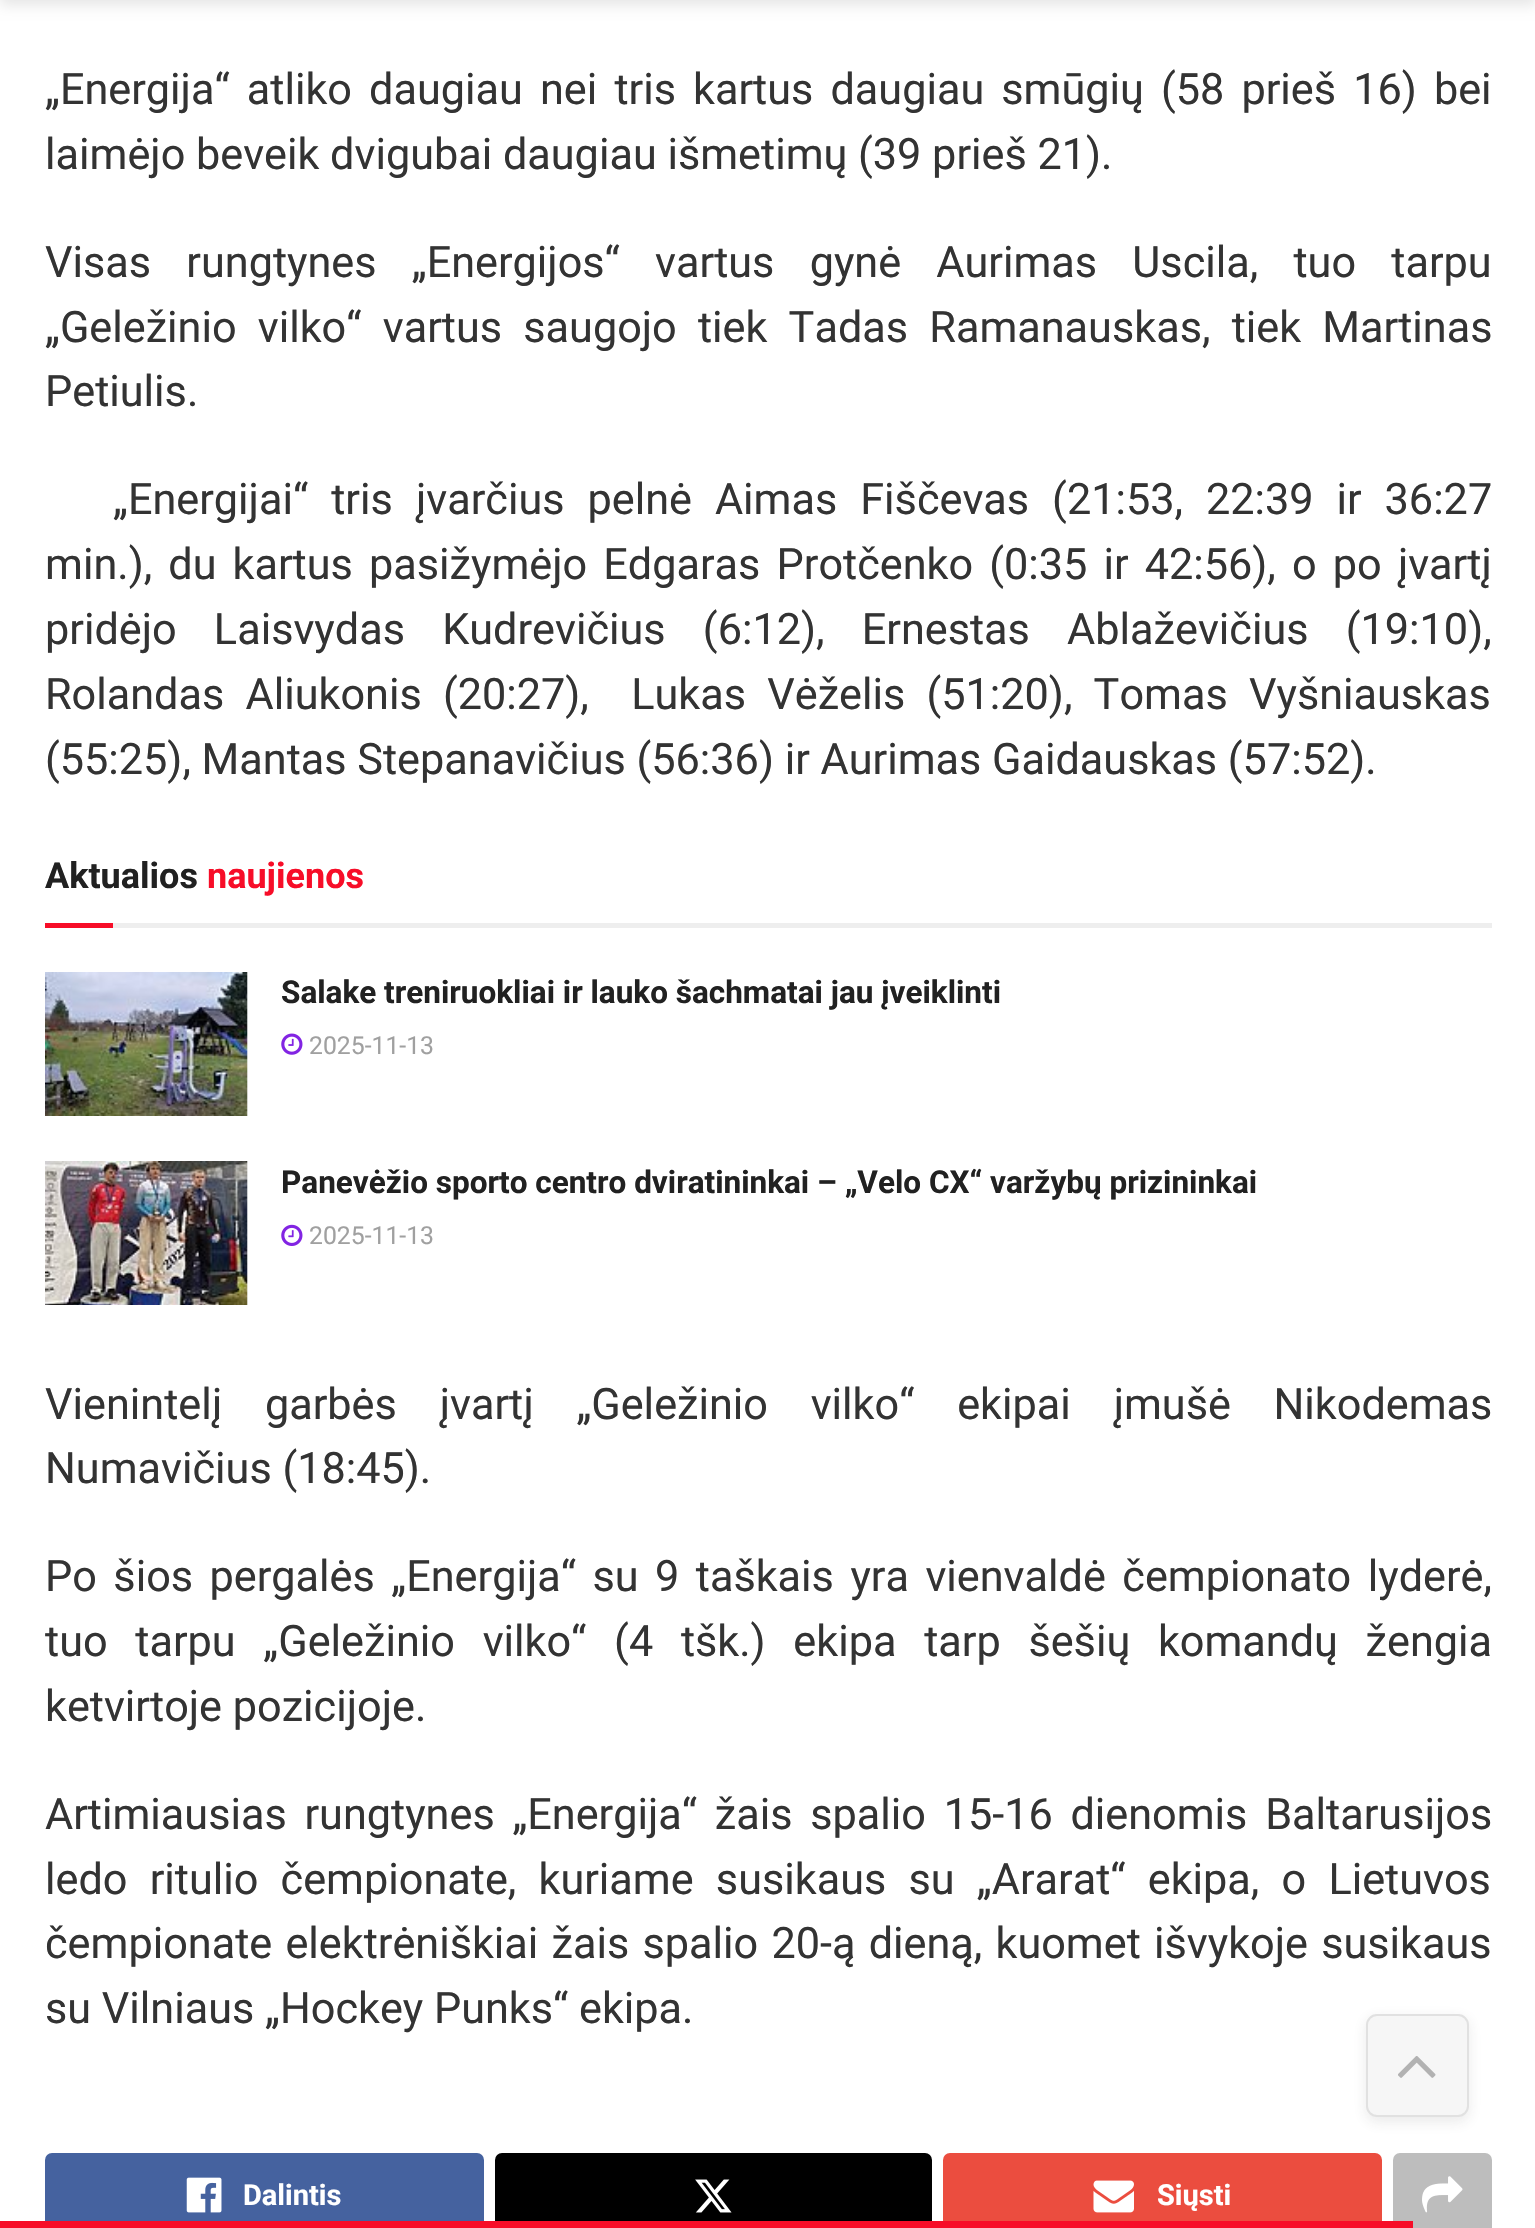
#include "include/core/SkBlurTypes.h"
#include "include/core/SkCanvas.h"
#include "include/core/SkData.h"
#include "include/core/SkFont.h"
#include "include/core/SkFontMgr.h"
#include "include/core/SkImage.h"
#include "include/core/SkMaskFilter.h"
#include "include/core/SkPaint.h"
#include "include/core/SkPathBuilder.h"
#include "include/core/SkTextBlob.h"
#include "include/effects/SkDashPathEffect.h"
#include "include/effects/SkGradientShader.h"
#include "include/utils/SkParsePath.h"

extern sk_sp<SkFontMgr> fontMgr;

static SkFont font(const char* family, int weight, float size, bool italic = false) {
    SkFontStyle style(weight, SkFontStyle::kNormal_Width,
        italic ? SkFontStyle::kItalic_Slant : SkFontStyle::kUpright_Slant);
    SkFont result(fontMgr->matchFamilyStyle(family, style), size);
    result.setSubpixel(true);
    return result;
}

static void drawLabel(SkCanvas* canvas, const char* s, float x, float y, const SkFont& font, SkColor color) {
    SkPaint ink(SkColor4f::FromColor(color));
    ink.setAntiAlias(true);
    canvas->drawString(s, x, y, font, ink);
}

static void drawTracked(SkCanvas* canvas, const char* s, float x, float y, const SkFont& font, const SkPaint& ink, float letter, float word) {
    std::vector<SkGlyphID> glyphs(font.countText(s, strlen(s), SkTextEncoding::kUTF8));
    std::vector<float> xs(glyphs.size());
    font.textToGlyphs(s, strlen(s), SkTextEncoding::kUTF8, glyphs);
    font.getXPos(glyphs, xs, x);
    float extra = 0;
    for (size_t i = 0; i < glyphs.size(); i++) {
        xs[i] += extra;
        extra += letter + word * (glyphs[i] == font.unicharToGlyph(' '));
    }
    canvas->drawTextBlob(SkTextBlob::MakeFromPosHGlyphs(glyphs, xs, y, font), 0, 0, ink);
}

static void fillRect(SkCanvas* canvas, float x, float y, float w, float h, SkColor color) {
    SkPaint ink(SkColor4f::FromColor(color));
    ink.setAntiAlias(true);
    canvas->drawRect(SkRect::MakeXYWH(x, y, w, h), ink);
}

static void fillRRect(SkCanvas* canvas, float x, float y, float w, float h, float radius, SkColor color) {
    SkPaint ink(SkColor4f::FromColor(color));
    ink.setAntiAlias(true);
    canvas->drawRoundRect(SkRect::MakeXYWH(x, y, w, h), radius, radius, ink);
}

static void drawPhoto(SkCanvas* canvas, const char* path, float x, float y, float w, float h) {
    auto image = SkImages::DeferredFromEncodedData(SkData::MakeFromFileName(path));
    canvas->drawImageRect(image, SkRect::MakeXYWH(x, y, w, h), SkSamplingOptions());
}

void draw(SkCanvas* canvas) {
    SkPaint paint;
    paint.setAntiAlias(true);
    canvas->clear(0xFFFFFFFF);
    paint.setColor(0x1A000000);
    paint.setMaskFilter(SkMaskFilter::MakeBlur(kNormal_SkBlurStyle, 7));
    canvas->drawRect(SkRect::MakeXYWH(0, -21, 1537, 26), paint);
    paint.setMaskFilter(nullptr);
    SkFont font1 = font("Roboto", 400, 43.2f);
    paint.setColor(0xFF333333);
    drawTracked(canvas, "„Energija“ atliko daugiau nei tris kartus daugiau smūgių (58 prieš 16) bei", 45, 104, font1, paint, 0, 6.4f);
    drawLabel(canvas, "laimėjo beveik dvigubai daugiau išmetimų (39 prieš 21).", 45, 169, font1, 0xFF333333);
    drawTracked(canvas, "Visas rungtynes „Energijos“ vartus gynė Aurimas Uscila, tuo tarpu", 45, 277, font1, paint, 0, 24.5f);
    drawTracked(canvas, "„Geležinio vilko“ vartus saugojo tiek Tadas Ramanauskas, tiek Martinas", 45, 342, font1, paint, 0, 10.5f);
    drawLabel(canvas, "Petiulis.", 45, 406, font1, 0xFF333333);
    drawTracked(canvas, "„Energijai“ tris įvarčius pelnė Aimas Fiščevas (21:53, 22:39 ir 36:27", 113, 514, font1, paint, 0, 12.25f);
    drawTracked(canvas, "min.), du kartus pasižymėjo Edgaras Protčenko (0:35 ir 42:56), o po įvartį", 45, 579, font1, paint, 0, 5.4f);
    drawTracked(canvas, "pridėjo Laisvydas Kudrevičius (6:12), Ernestas Ablaževičius (19:10),", 45, 644, font1, paint, 0, 26.5f);
    drawTracked(canvas, "Rolandas Aliukonis (20:27),  Lukas Vėželis (51:20), Tomas Vyšniauskas", 45, 709, font1, paint, 0, 10.5f);
    drawLabel(canvas, "(55:25), Mantas Stepanavičius (56:36) ir Aurimas Gaidauskas (57:52).", 45, 774, font1, 0xFF333333);
    fillRect(canvas, 113, 923, 1379, 5, 0xFFEEEEEE);
    SkFont font2 = font("Roboto", 700, 36);
    drawLabel(canvas, "Aktualios", 45, 888, font2, 0xFF212121);
    drawLabel(canvas, "naujienos", 207, 888, font2, 0xFFF70D28);
    fillRect(canvas, 45, 923, 68, 5, 0xFFF70D28);
    fillRect(canvas, 247, 972, 1, 144, 0xFFF7F7F7);
    drawPhoto(canvas, "assets/img1.png", 45, 972, 203, 144);
    SkFont font3 = font("Roboto", 700, 31.5f);
    drawLabel(canvas, "Salake treniruokliai ir lauko šachmatai jau įveiklinti", 281, 1003, font3, 0xFF212121);
    drawPhoto(canvas, "assets/img2.png", 281, 1033, 22, 22);
    SkFont font4 = font("Roboto", 400, 24.75f);
    drawLabel(canvas, "2025-11-13", 309, 1054, font4, 0xFFA0A0A0);
    fillRect(canvas, 247, 1161, 1, 144, 0xFFF7F7F7);
    drawPhoto(canvas, "assets/img3.png", 45, 1161, 203, 144);
    drawLabel(canvas, "Panevėžio sporto centro dviratininkai – „Velo CX“ varžybų prizininkai", 281, 1193, font3, 0xFF212121);
    drawPhoto(canvas, "assets/img4.png", 281, 1224, 22, 22);
    drawLabel(canvas, "2025-11-13", 309, 1244, font4, 0xFFA0A0A0);
    drawTracked(canvas, "Vienintelį garbės įvartį „Geležinio vilko“ ekipai įmušė Nikodemas", 45, 1419, font1, paint, 0, 32);
    drawLabel(canvas, "Numavičius (18:45).", 45, 1483, font1, 0xFF333333);
    drawTracked(canvas, "Po šios pergalės „Energija“ su 9 taškais yra vienvaldė čempionato lyderė,", 45, 1591, font1, paint, 0, 5.75f);
    drawTracked(canvas, "tuo tarpu „Geležinio vilko“ (4 tšk.) ekipa tarp šešių komandų žengia", 45, 1656, font1, paint, 0, 17);
    drawLabel(canvas, "ketvirtoje pozicijoje.", 45, 1721, font1, 0xFF333333);
    drawTracked(canvas, "Artimiausias rungtynes „Energija“ žais spalio 15-16 dienomis Baltarusijos", 45, 1829, font1, paint, 0, 7);
    drawTracked(canvas, "ledo ritulio čempionate, kuriame susikaus su „Ararat“ ekipa, o Lietuvos", 45, 1894, font1, paint, 0, 11.5f);
    drawTracked(canvas, "čempionate elektrėniškiai žais spalio 20-ą dieną, kuomet išvykoje susikaus", 45, 1958, font1, paint, 0, 2.5f);
    drawLabel(canvas, "su Vilniaus „Hockey Punks“ ekipa.", 45, 2023, font1, 0xFF333333);
    fillRRect(canvas, 45, 2153, 439, 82, 7, 0xFF45629F);
    drawPhoto(canvas, "assets/img5.png", 186, 2177, 36, 36);
    SkFont font5 = font("Roboto", 700, 29);
    drawLabel(canvas, "Dalintis", 243, 2205, font5, 0xFFFFFFFF);
    fillRRect(canvas, 495, 2153, 437, 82, 7, 0xFF000000);
    drawPhoto(canvas, "assets/img6.png", 695, 2179, 37, 34);
    fillRRect(canvas, 943, 2153, 439, 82, 7, 0xFFEB4D3F);
    drawPhoto(canvas, "assets/img7.png", 1093, 2180, 41, 33);
    drawLabel(canvas, "Siųsti", 1157, 2205, font5, 0xFFFFFFFF);
    fillRRect(canvas, 1393, 2153, 99, 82, 7, 0xFFBDBDBD);
    drawPhoto(canvas, "assets/img8.png", 1422, 2176, 41, 37);
    paint.setColor(0x1A333333);
    paint.setMaskFilter(SkMaskFilter::MakeBlur(kNormal_SkBlurStyle, 7));
    canvas->drawRoundRect(SkRect::MakeXYWH(1366, 2018, 103, 104), 11, 11, paint);
    paint.setMaskFilter(nullptr);
    fillRRect(canvas, 1366, 2014, 103, 103, 11, 0xFFF6F6F6);
    paint.setStroke(true);
    paint.setStrokeWidth(2);
    paint.setColor(0x1C333333);
    canvas->drawRoundRect(SkRect::MakeXYWH(1367, 2015, 101, 101), 10, 10, paint);
    drawPhoto(canvas, "assets/img9.png", 1398, 2056, 38, 22);
    fillRect(canvas, 0, 2221, 1413, 7, 0xFFF70D28);
}
